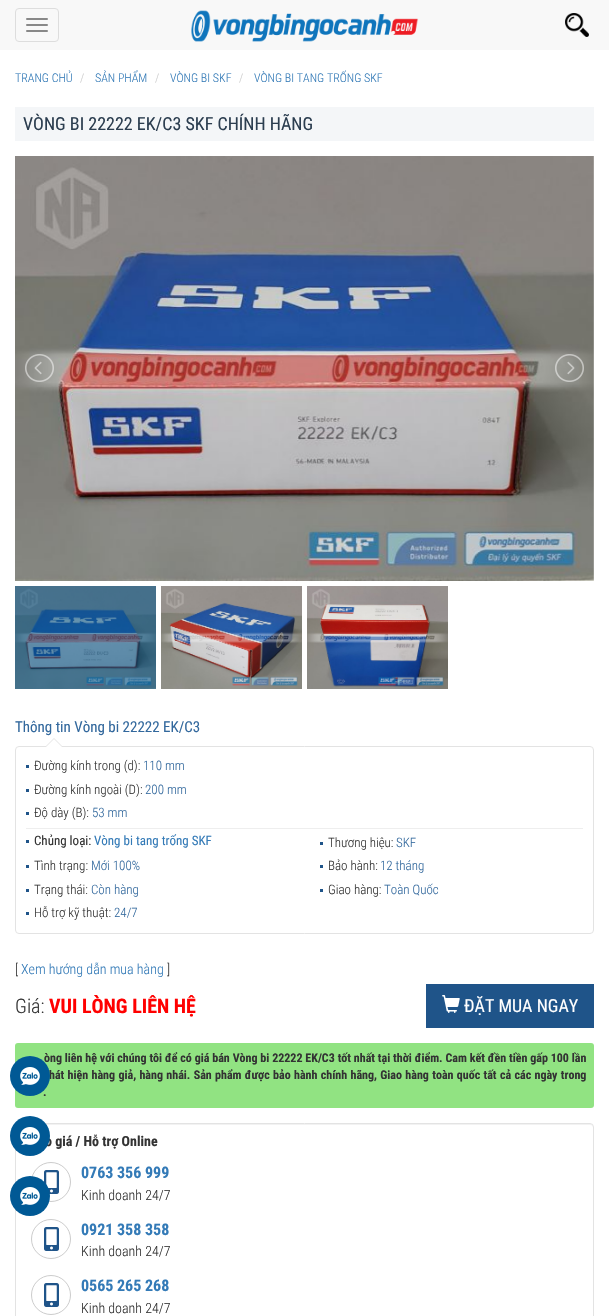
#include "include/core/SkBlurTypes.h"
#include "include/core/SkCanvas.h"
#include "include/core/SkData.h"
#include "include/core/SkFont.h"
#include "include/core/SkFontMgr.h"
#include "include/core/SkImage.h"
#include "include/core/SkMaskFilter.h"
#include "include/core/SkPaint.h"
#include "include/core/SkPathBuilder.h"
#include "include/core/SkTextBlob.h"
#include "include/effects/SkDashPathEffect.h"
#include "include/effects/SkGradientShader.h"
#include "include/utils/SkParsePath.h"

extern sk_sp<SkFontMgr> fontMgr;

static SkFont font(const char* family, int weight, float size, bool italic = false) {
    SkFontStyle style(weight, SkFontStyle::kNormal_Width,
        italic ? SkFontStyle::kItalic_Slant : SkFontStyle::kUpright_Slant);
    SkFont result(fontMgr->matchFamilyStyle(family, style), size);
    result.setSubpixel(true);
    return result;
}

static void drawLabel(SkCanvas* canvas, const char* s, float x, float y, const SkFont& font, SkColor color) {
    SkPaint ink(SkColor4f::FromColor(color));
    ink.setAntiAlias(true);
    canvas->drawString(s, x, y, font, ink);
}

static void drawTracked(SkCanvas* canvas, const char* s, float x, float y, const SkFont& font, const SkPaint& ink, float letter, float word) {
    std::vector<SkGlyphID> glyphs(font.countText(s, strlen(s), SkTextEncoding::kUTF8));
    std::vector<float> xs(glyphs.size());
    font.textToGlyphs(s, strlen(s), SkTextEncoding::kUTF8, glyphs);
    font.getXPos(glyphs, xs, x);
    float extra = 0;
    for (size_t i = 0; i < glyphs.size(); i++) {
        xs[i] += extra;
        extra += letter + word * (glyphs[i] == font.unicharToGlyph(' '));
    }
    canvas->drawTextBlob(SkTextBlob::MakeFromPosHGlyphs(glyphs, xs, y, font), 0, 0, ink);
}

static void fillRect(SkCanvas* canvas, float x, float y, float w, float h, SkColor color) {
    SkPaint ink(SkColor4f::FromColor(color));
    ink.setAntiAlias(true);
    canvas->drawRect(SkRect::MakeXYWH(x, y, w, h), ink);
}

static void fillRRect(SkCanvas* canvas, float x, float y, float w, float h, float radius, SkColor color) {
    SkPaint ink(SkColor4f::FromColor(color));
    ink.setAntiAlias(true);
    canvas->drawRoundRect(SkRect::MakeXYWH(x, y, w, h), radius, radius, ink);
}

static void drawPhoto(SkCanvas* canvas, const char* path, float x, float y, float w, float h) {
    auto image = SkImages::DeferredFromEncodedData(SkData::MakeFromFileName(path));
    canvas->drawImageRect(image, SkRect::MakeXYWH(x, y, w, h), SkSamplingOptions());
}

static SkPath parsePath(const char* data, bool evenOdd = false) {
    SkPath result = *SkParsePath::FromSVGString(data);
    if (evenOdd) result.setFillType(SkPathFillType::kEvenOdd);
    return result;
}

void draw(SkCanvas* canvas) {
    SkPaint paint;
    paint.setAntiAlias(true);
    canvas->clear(0xFFFFFFFF);
    fillRect(canvas, 0, 0, 609, 50, 0xFFF8F8F8);
    paint.setStroke(true);
    paint.setStrokeWidth(1);
    paint.setColor(0xFFDDDDDD);
    canvas->drawRoundRect(SkRect::MakeXYWH(15.5f, 8.5f, 43, 33), 3.5f, 3.5f, paint);
    fillRRect(canvas, 26, 18, 22, 2, 1, 0xFF888888);
    fillRRect(canvas, 26, 24, 22, 2, 1, 0xFF888888);
    fillRRect(canvas, 26, 30, 22, 2, 1, 0xFF888888);
    drawPhoto(canvas, "assets/img1.png", 191, 10, 228, 32);
    drawPhoto(canvas, "assets/img2.png", 565, 13, 24, 24);
    SkFont font1 = font("Roboto Condensed", 300, 12);
    drawLabel(canvas, "TRANG CHỦ", 15, 82, font1, 0xFF337AB7);
    drawLabel(canvas, "/", 80, 82, font1, 0xFFCCCCCC);
    drawLabel(canvas, "SẢN PHẨM", 95, 82, font1, 0xFF337AB7);
    drawLabel(canvas, "/", 155, 82, font1, 0xFFCCCCCC);
    drawLabel(canvas, "VÒNG BI SKF", 170, 82, font1, 0xFF337AB7);
    drawLabel(canvas, "/", 239, 82, font1, 0xFFCCCCCC);
    drawLabel(canvas, "VÒNG BI TANG TRỐNG SKF", 254, 82, font1, 0xFF337AB7);
    fillRect(canvas, 15, 107, 579, 34, 0xFFF4F6F8);
    SkFont font2 = font("Roboto Condensed", 400, 18);
    drawLabel(canvas, "VÒNG BI 22222 EK/C3 SKF CHÍNH HÃNG", 23, 130, font2, 0xFF2C3E50);
    drawPhoto(canvas, "assets/img3.png", 15, 156, 579, 425);
    drawPhoto(canvas, "assets/img4.png", 25, 354, 29, 28);
    drawPhoto(canvas, "assets/img5.png", 555, 354, 29, 28);
    fillRect(canvas, 15, 586, 141, 103, 0xFF005995);
    drawPhoto(canvas, "assets/img6.png", 15, 586, 141, 103);
    drawPhoto(canvas, "assets/img7.png", 161, 586, 141, 103);
    drawPhoto(canvas, "assets/img8.png", 307, 586, 141, 103);
    SkFont font3 = font("Roboto Condensed", 400, 15);
    drawLabel(canvas, "Thông tin Vòng bi 22222 EK/C3", 15, 732, font3, 0xFF32689D);
    paint.setColor(0xFFE3E3E3);
    canvas->drawRoundRect(SkRect::MakeXYWH(15.5f, 746.5f, 578, 187), 3.5f, 3.5f, paint);
    paint.setStroke(false);
    canvas->drawPath(parsePath("M62 746H46L54 738Z"), paint);
    paint.setColor(0xFFFFFFFF);
    canvas->drawPath(parsePath("M62 747H46L54 739Z"), paint);
    fillRect(canvas, 26, 765, 3, 3, 0xFF1F5489);
    SkFont font4 = font("Roboto Condensed", 300, 13);
    drawLabel(canvas, "Đường kính trong (d):", 34, 770, font4, 0xFF333333);
    drawLabel(canvas, "110 mm", 143, 770, font4, 0xFF32689D);
    fillRect(canvas, 26, 789, 3, 3, 0xFF1F5489);
    drawLabel(canvas, "Đường kính ngoài (D):", 34, 794, font4, 0xFF333333);
    drawLabel(canvas, "200 mm", 145, 794, font4, 0xFF32689D);
    fillRect(canvas, 26, 812, 3, 3, 0xFF1F5489);
    drawLabel(canvas, "Độ dày (B):", 34, 817, font4, 0xFF333333);
    drawLabel(canvas, "53 mm", 92, 817, font4, 0xFF32689D);
    fillRect(canvas, 26, 828, 557, 1, 0xFFEEEEEE);
    fillRect(canvas, 26, 840, 3, 3, 0xFF1F5489);
    SkFont font5 = font("Roboto Condensed", 400, 13);
    drawLabel(canvas, "Chủng loại:", 34, 845, font5, 0xFF333333);
    drawLabel(canvas, "Vòng bi tang trống SKF", 94, 845, font5, 0xFF337AB7);
    fillRect(canvas, 320, 842, 3, 3, 0xFF1F5489);
    drawLabel(canvas, "Thương hiệu:", 328, 847, font4, 0xFF333333);
    drawLabel(canvas, "SKF", 396, 847, font4, 0xFF32689D);
    fillRect(canvas, 26, 865, 3, 3, 0xFF1F5489);
    drawLabel(canvas, "Tình trạng:", 34, 870, font4, 0xFF333333);
    drawLabel(canvas, "Mới 100%", 91, 870, font4, 0xFF32689D);
    fillRect(canvas, 320, 865, 3, 3, 0xFF1F5489);
    drawLabel(canvas, "Bảo hành:", 328, 870, font4, 0xFF333333);
    drawLabel(canvas, "12 tháng", 380, 870, font4, 0xFF32689D);
    fillRect(canvas, 26, 889, 3, 3, 0xFF1F5489);
    drawLabel(canvas, "Trạng thái:", 34, 894, font4, 0xFF333333);
    drawLabel(canvas, "Còn hàng", 91, 894, font4, 0xFF32689D);
    fillRect(canvas, 320, 889, 3, 3, 0xFF1F5489);
    drawLabel(canvas, "Giao hàng:", 328, 894, font4, 0xFF333333);
    drawLabel(canvas, "Toàn Quốc", 384, 894, font4, 0xFF32689D);
    fillRect(canvas, 26, 912, 3, 3, 0xFF1F5489);
    drawLabel(canvas, "Hỗ trợ kỹ thuật:", 34, 917, font4, 0xFF333333);
    drawLabel(canvas, "24/7", 114, 917, font4, 0xFF32689D);
    SkFont font6 = font("Roboto Condensed", 300, 14);
    drawLabel(canvas, "[", 15, 974, font6, 0xFF333333);
    drawLabel(canvas, "Xem hướng dẫn mua hàng", 21, 974, font6, 0xFF337AB7);
    drawLabel(canvas, "]", 167, 974, font6, 0xFF333333);
    SkFont font7 = font("Roboto Condensed", 300, 20);
    drawLabel(canvas, "Giá:", 15, 1013, font7, 0xFF333333);
    SkFont font8 = font("Roboto Condensed", 700, 20);
    drawLabel(canvas, "VUI LÒNG LIÊN HỆ", 49, 1013, font8, 0xFFFF0000);
    fillRect(canvas, 426, 984, 168, 44, 0xFF1F5489);
    drawPhoto(canvas, "assets/img9.png", 442, 995, 18, 18);
    drawLabel(canvas, "ĐẶT MUA NGAY", 464, 1012, font2, 0xFFFFFFFF);
    fillRRect(canvas, 15, 1043, 579, 65, 3, 0xFF91E382);
    SkFont font9 = font("Roboto Condensed", 700, 12);
    paint.setColor(0xFF333333);
    drawTracked(canvas, "òng liên hệ với chúng tôi để có giá bán Vòng bi 22222 EK/C3 tốt nhất tại thời điểm. Cam kết đền tiền gấp 100 lần", 44, 1062, font9, paint, 0, 0.1f);
    drawTracked(canvas, "hát hiện hàng giả, hàng nhái. Sản phẩm được bảo hành chính hãng, Giao hàng toàn quốc tất cả các ngày trong", 49, 1079, font9, paint, 0, 0.6f);
    drawLabel(canvas, ".", 43, 1096, font9, 0xFF333333);
    paint.setColor(0xFFF2F2F2);
    canvas->drawPath(parsePath("M19 1125H590C592 1125 593 1126 593 1128V1127C593 1125 592 1124 590 1124H19C17 1124 16 1125 16 1127V1128C16 1126 17 1125 19 1125Z"), paint);
    paint.setStroke(true);
    paint.setColor(0xFFE3E3E3);
    canvas->drawRoundRect(SkRect::MakeXYWH(15.5f, 1123.5f, 578, 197), 3.5f, 3.5f, paint);
    SkFont font10 = font("Roboto Condensed", 700, 14);
    drawLabel(canvas, "o giá / Hỗ trợ Online", 45, 1146, font10, 0xFF333333);
    paint.setColor(0xFFCCCCCC);
    canvas->drawCircle(51, 1182, 19.5f, paint);
    drawPhoto(canvas, "assets/img10.png", 44, 1170, 15, 24);
    SkFont font11 = font("Roboto Condensed", 700, 16);
    drawLabel(canvas, "0763 356 999", 81, 1178, font11, 0xFF337AB7);
    drawLabel(canvas, "Kinh doanh 24/7", 81, 1200, font6, 0xFF333333);
    canvas->drawCircle(51, 1239, 19.5f, paint);
    drawPhoto(canvas, "assets/img10.png", 44, 1227, 15, 24);
    drawLabel(canvas, "0921 358 358", 81, 1235, font11, 0xFF337AB7);
    drawLabel(canvas, "Kinh doanh 24/7", 81, 1256, font6, 0xFF333333);
    canvas->drawCircle(51, 1295, 19.5f, paint);
    drawPhoto(canvas, "assets/img10.png", 44, 1283, 15, 24);
    drawLabel(canvas, "0565 265 268", 81, 1291, font11, 0xFF337AB7);
    drawLabel(canvas, "Kinh doanh 24/7", 81, 1313, font6, 0xFF333333);
    paint.setStroke(false);
    paint.setColor(0xFF005995);
    canvas->drawCircle(30, 1076, 20, paint);
    drawPhoto(canvas, "assets/img11.png", 20, 1067, 20, 18);
    canvas->drawCircle(30, 1136, 20, paint);
    drawPhoto(canvas, "assets/img11.png", 20, 1127, 20, 18);
    canvas->drawCircle(30, 1196, 20, paint);
    drawPhoto(canvas, "assets/img11.png", 20, 1187, 20, 18);
}
